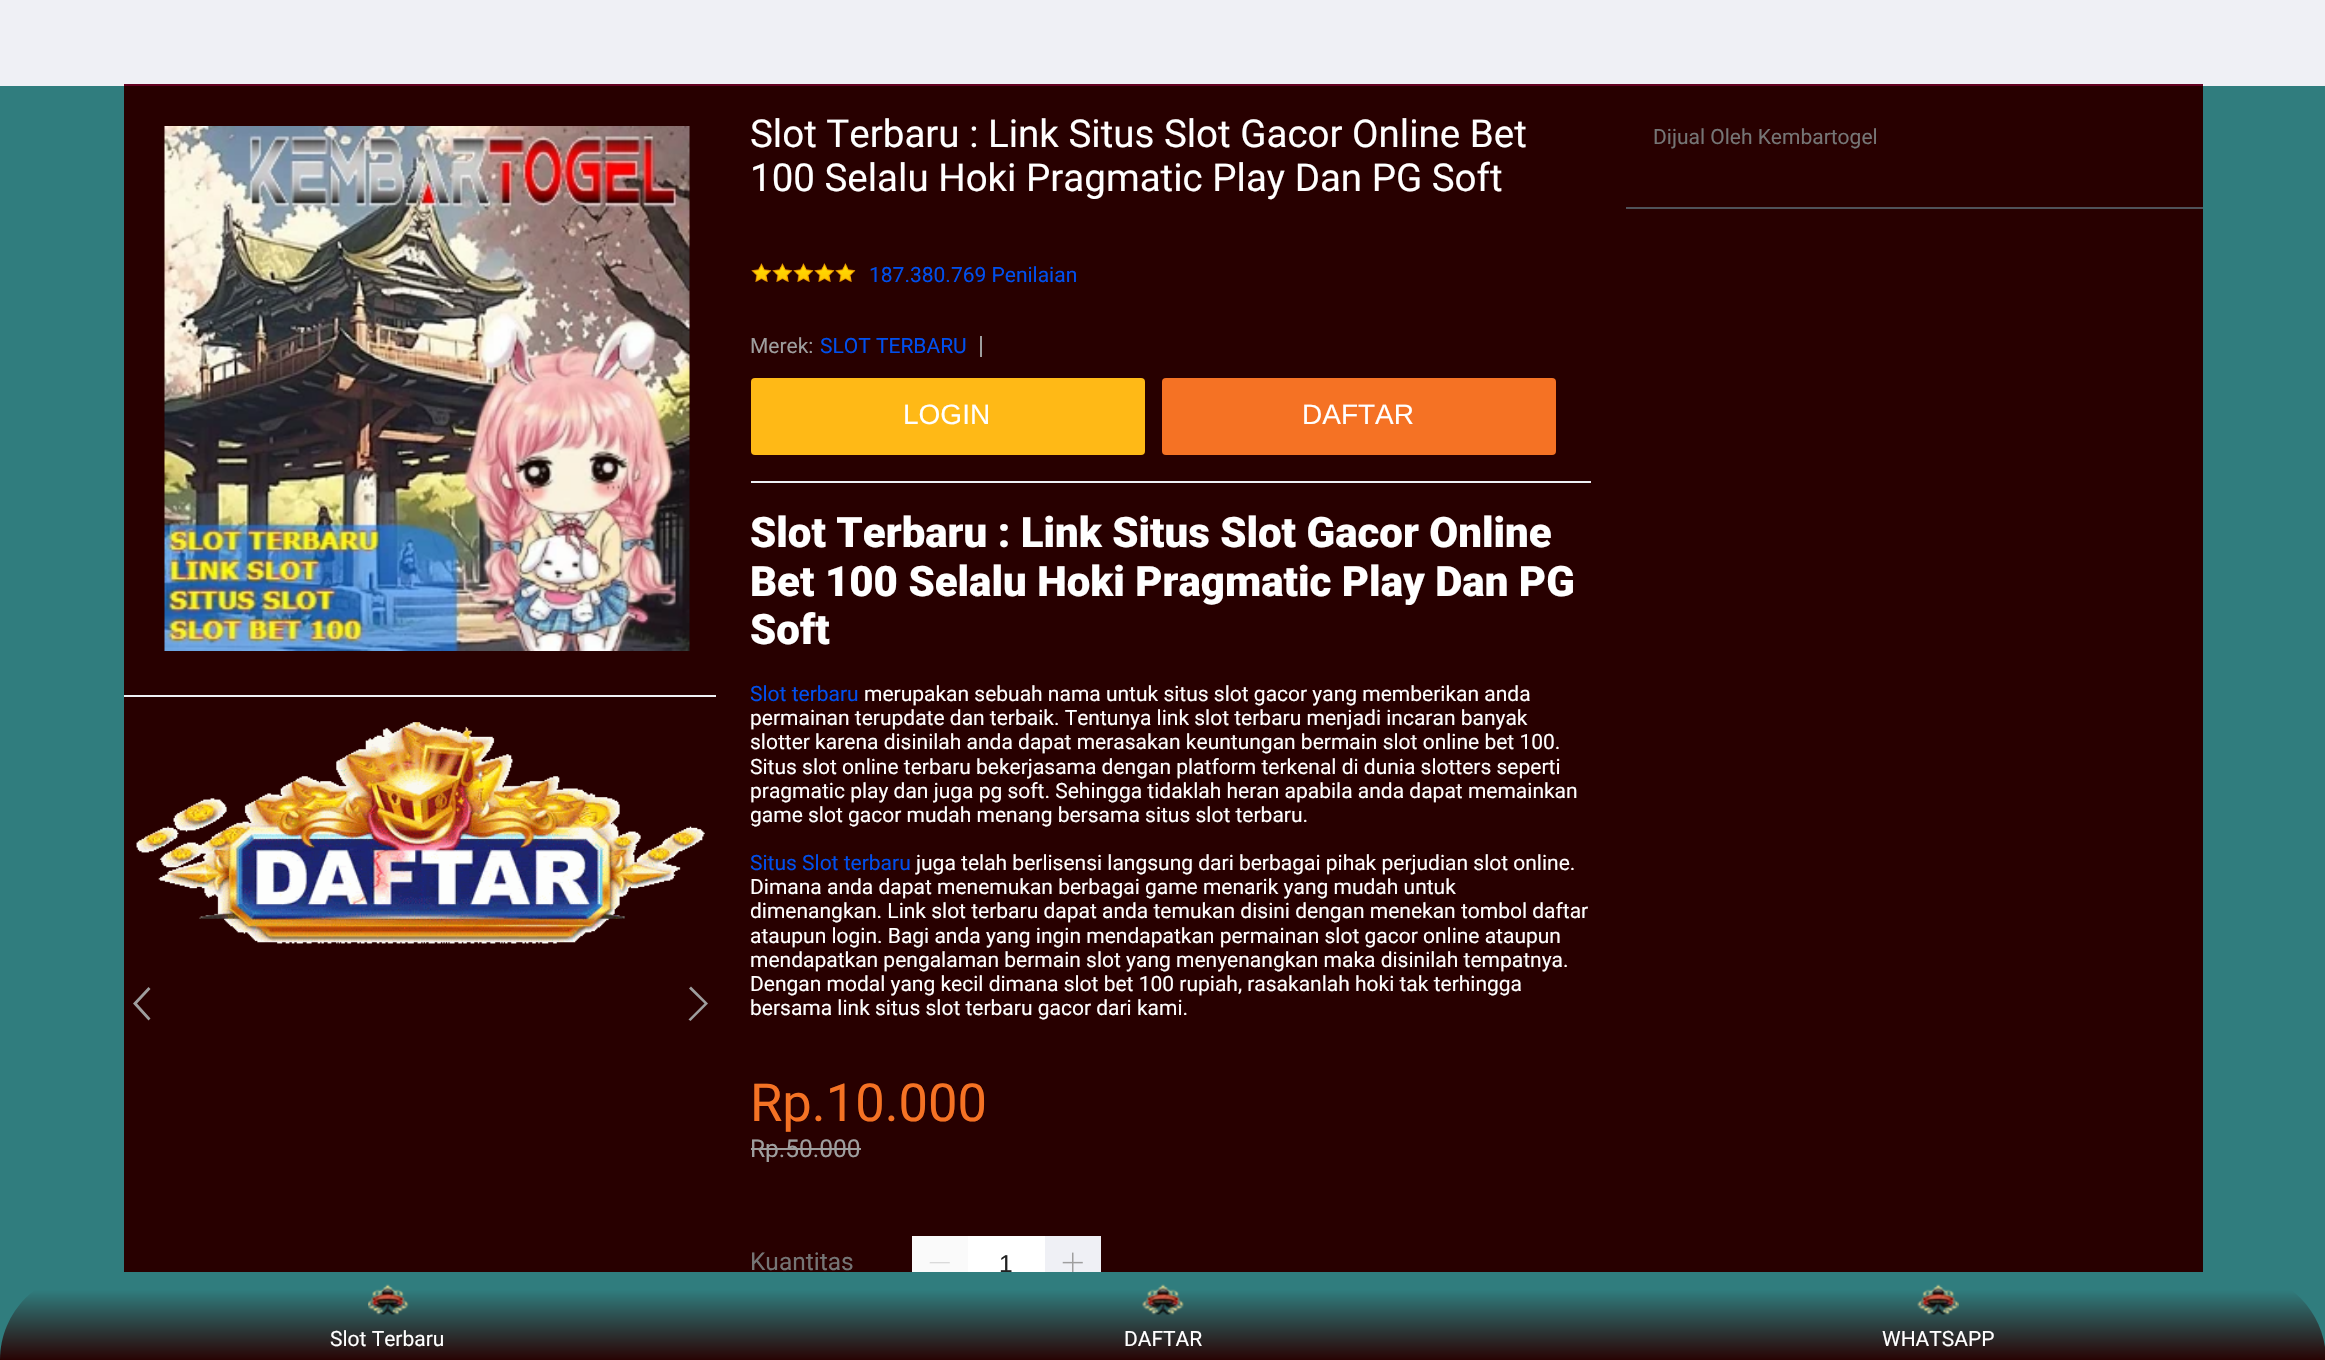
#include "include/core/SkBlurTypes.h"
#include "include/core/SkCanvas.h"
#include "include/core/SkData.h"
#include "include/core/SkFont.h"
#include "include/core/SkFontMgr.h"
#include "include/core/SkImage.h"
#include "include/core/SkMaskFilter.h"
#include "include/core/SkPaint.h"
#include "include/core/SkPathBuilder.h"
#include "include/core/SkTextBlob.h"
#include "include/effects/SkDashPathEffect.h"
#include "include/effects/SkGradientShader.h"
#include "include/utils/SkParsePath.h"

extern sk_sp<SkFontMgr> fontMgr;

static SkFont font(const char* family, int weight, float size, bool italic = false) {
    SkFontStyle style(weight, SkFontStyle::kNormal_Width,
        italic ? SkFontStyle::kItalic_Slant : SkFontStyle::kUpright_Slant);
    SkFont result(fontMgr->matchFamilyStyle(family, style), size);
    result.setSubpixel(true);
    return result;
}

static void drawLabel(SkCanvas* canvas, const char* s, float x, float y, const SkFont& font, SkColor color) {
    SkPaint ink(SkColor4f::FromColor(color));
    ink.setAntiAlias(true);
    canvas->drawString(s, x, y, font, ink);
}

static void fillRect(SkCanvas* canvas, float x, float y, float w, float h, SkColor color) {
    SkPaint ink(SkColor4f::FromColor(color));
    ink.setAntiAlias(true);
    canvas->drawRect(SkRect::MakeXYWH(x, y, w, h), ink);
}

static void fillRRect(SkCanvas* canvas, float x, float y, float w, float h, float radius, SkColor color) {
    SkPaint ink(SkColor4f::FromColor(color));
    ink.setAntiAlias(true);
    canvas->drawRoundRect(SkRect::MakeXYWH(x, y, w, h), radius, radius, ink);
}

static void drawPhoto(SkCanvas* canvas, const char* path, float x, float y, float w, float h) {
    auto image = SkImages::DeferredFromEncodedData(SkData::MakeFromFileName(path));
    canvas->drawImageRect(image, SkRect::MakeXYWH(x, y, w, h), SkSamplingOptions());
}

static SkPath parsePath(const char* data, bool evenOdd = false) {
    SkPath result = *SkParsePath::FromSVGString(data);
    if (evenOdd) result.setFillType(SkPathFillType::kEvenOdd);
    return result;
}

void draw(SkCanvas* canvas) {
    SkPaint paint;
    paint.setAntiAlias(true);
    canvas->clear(0xFF307D7E);
    fillRect(canvas, 0, 0, 2325, 86, 0xFFEFF0F5);
    fillRect(canvas, 124, 84, 2079, 2, 0xFF650120);
    fillRect(canvas, 124, 86, 2079, 1186, 0xFF280000);
    fillRect(canvas, 124, 695, 592, 2, 0xFFEFF0F5);
    drawPhoto(canvas, "assets/img1.png", 164, 126, 526, 525);
    drawPhoto(canvas, "assets/img2.png", 136, 722, 569, 222);
    paint.setColor(0xFF9E9E9E);
    canvas->drawPath(parsePath("M150.5 1018.5L137 1003.5L150.5 989L148.5 987L133 1003.5L148.5 1020.5Z"), paint);
    canvas->drawPath(parsePath("M690.5 1021L688.5 1019.5L704.5 1003.5L689 988.5L691 986.5L708 1003.5Z"), paint);
    SkFont font1 = font("Roboto", 400, 38.5f);
    drawLabel(canvas, "Slot Terbaru : Link Situs Slot Gacor Online Bet", 750, 147, font1, 0xFFFFFFFF);
    drawLabel(canvas, "100 Selalu Hoki Pragmatic Play Dan PG Soft", 750, 191, font1, 0xFFFFFFFF);
    drawPhoto(canvas, "assets/img3.png", 751, 263, 21, 19);
    drawPhoto(canvas, "assets/img4.png", 772, 263, 21, 19);
    drawPhoto(canvas, "assets/img3.png", 793, 263, 21, 19);
    drawPhoto(canvas, "assets/img3.png", 814, 263, 21, 19);
    drawPhoto(canvas, "assets/img3.png", 835, 263, 21, 19);
    SkFont font2 = font("Roboto", 400, 21);
    drawLabel(canvas, "187.380.769 Penilaian", 869, 282, font2, 0xFF004FED);
    fillRect(canvas, 751, 481, 840, 2, 0xFFEFF0F5);
    drawLabel(canvas, "Merek:", 750, 353, font2, 0xFF9E9E9E);
    drawLabel(canvas, "SLOT TERBARU", 820, 353, font2, 0xFF004FED);
    fillRect(canvas, 980, 336, 2, 21, 0xFF9E9E9E);
    fillRRect(canvas, 751, 378, 394, 77, 4, 0xFFFFB916);
    SkFont font3 = font("Liberation Sans", 400, 28);
    drawLabel(canvas, "LOGIN", 903, 424, font3, 0xFFFFFFFF);
    fillRRect(canvas, 1162, 378, 394, 77, 4, 0xFFF57224);
    drawLabel(canvas, "DAFTAR", 1302, 424, font3, 0xFFFFFFFF);
    SkFont font4 = font("Roboto", 900, 42);
    drawLabel(canvas, "Slot Terbaru : Link Situs Slot Gacor Online", 750, 547, font4, 0xFFFFFFFF);
    drawLabel(canvas, "Bet 100 Selalu Hoki Pragmatic Play Dan PG", 750, 596, font4, 0xFFFFFFFF);
    drawLabel(canvas, "Soft", 750, 644, font4, 0xFFFFFFFF);
    drawLabel(canvas, "Slot terbaru", 750, 701, font2, 0xFF004FED);
    drawLabel(canvas, "merupakan sebuah nama untuk situs slot gacor yang memberikan anda", 864, 701, font2, 0xFFFFFFFF);
    drawLabel(canvas, "permainan terupdate dan terbaik. Tentunya link slot terbaru menjadi incaran banyak", 750, 725, font2, 0xFFFFFFFF);
    drawLabel(canvas, "slotter karena disinilah anda dapat merasakan keuntungan bermain slot online bet 100.", 750, 749, font2, 0xFFFFFFFF);
    drawLabel(canvas, "Situs slot online terbaru bekerjasama dengan platform terkenal di dunia slotters seperti", 750, 774, font2, 0xFFFFFFFF);
    drawLabel(canvas, "pragmatic play dan juga pg soft. Sehingga tidaklah heran apabila anda dapat memainkan", 750, 798, font2, 0xFFFFFFFF);
    drawLabel(canvas, "game slot gacor mudah menang bersama situs slot terbaru.", 750, 822, font2, 0xFFFFFFFF);
    drawLabel(canvas, "Situs Slot terbaru", 750, 870, font2, 0xFF004FED);
    drawLabel(canvas, "juga telah berlisensi langsung dari berbagai pihak perjudian slot online.", 916, 870, font2, 0xFFFFFFFF);
    drawLabel(canvas, "Dimana anda dapat menemukan berbagai game menarik yang mudah untuk", 750, 894, font2, 0xFFFFFFFF);
    drawLabel(canvas, "dimenangkan. Link slot terbaru dapat anda temukan disini dengan menekan tombol daftar", 750, 918, font2, 0xFFFFFFFF);
    drawLabel(canvas, "ataupun login. Bagi anda yang ingin mendapatkan permainan slot gacor online ataupun", 750, 943, font2, 0xFFFFFFFF);
    drawLabel(canvas, "mendapatkan pengalaman bermain slot yang menyenangkan maka disinilah tempatnya.", 750, 967, font2, 0xFFFFFFFF);
    drawLabel(canvas, "Dengan modal yang kecil dimana slot bet 100 rupiah, rasakanlah hoki tak terhingga", 750, 991, font2, 0xFFFFFFFF);
    drawLabel(canvas, "bersama link situs slot terbaru gacor dari kami.", 750, 1015, font2, 0xFFFFFFFF);
    SkFont font5 = font("Roboto", 400, 52.5f);
    drawLabel(canvas, "Rp.10.000", 750, 1121, font5, 0xFFF57224);
    SkFont font6 = font("Roboto", 400, 24.5f);
    drawLabel(canvas, "Rp.50.000", 750, 1157, font6, 0xFF9E9E9E);
    fillRect(canvas, 751, 1148, 110, 2, 0xFF9E9E9E);
    drawLabel(canvas, "Kuantitas", 750, 1270, font6, 0xFF757575);
    fillRect(canvas, 912, 1236, 56, 36, 0xFFFAFAFA);
    drawPhoto(canvas, "assets/img5.png", 929, 1262, 21, 2);
    fillRect(canvas, 1045, 1236, 56, 36, 0xFFEFF0F5);
    drawPhoto(canvas, "assets/img6.png", 1062, 1252, 21, 20);
    fillRect(canvas, 968, 1236, 77, 36, 0xFFFFFFFF);
    SkFont font7 = font("Liberation Sans", 400, 24.5f);
    drawLabel(canvas, "1", 999, 1272, font7, 0xFF212121);
    drawLabel(canvas, "Dijual Oleh Kembartogel", 1653, 144, font2, 0xFF757575);
    fillRect(canvas, 1626, 207, 577, 2, 0xFF505259);
    {
        const SkColor colors[] = {0xFF307D7E, 0xFF307D7E, 0xFF280000};
        const float stops[] = {0.02f, 0.2f, 1};
        const SkPoint ends[] = {{1163, 1272}, {1163, 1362}};
        paint.setShader(SkGradientShader::MakeLinear(ends, colors, stops, 3, SkTileMode::kClamp));
        paint.setAlpha(255);
    }
    canvas->drawPath(parsePath("M88 1272H2238C2286.5 1272 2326 1311.5 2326 1360V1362H0V1360C0 1311.5 39.5 1272 88 1272Z"), paint);
    drawPhoto(canvas, "assets/img7.png", 368, 1284, 41, 31);
    drawLabel(canvas, "Slot Terbaru", 330, 1346, font2, 0xFFFFFFFF);
    drawPhoto(canvas, "assets/img8.png", 1142, 1284, 42, 31);
    drawLabel(canvas, "DAFTAR", 1124, 1346, font2, 0xFFFFFFFF);
    drawPhoto(canvas, "assets/img9.png", 1917, 1284, 42, 31);
    drawLabel(canvas, "WHATSAPP", 1882, 1346, font2, 0xFFFFFFFF);
}
